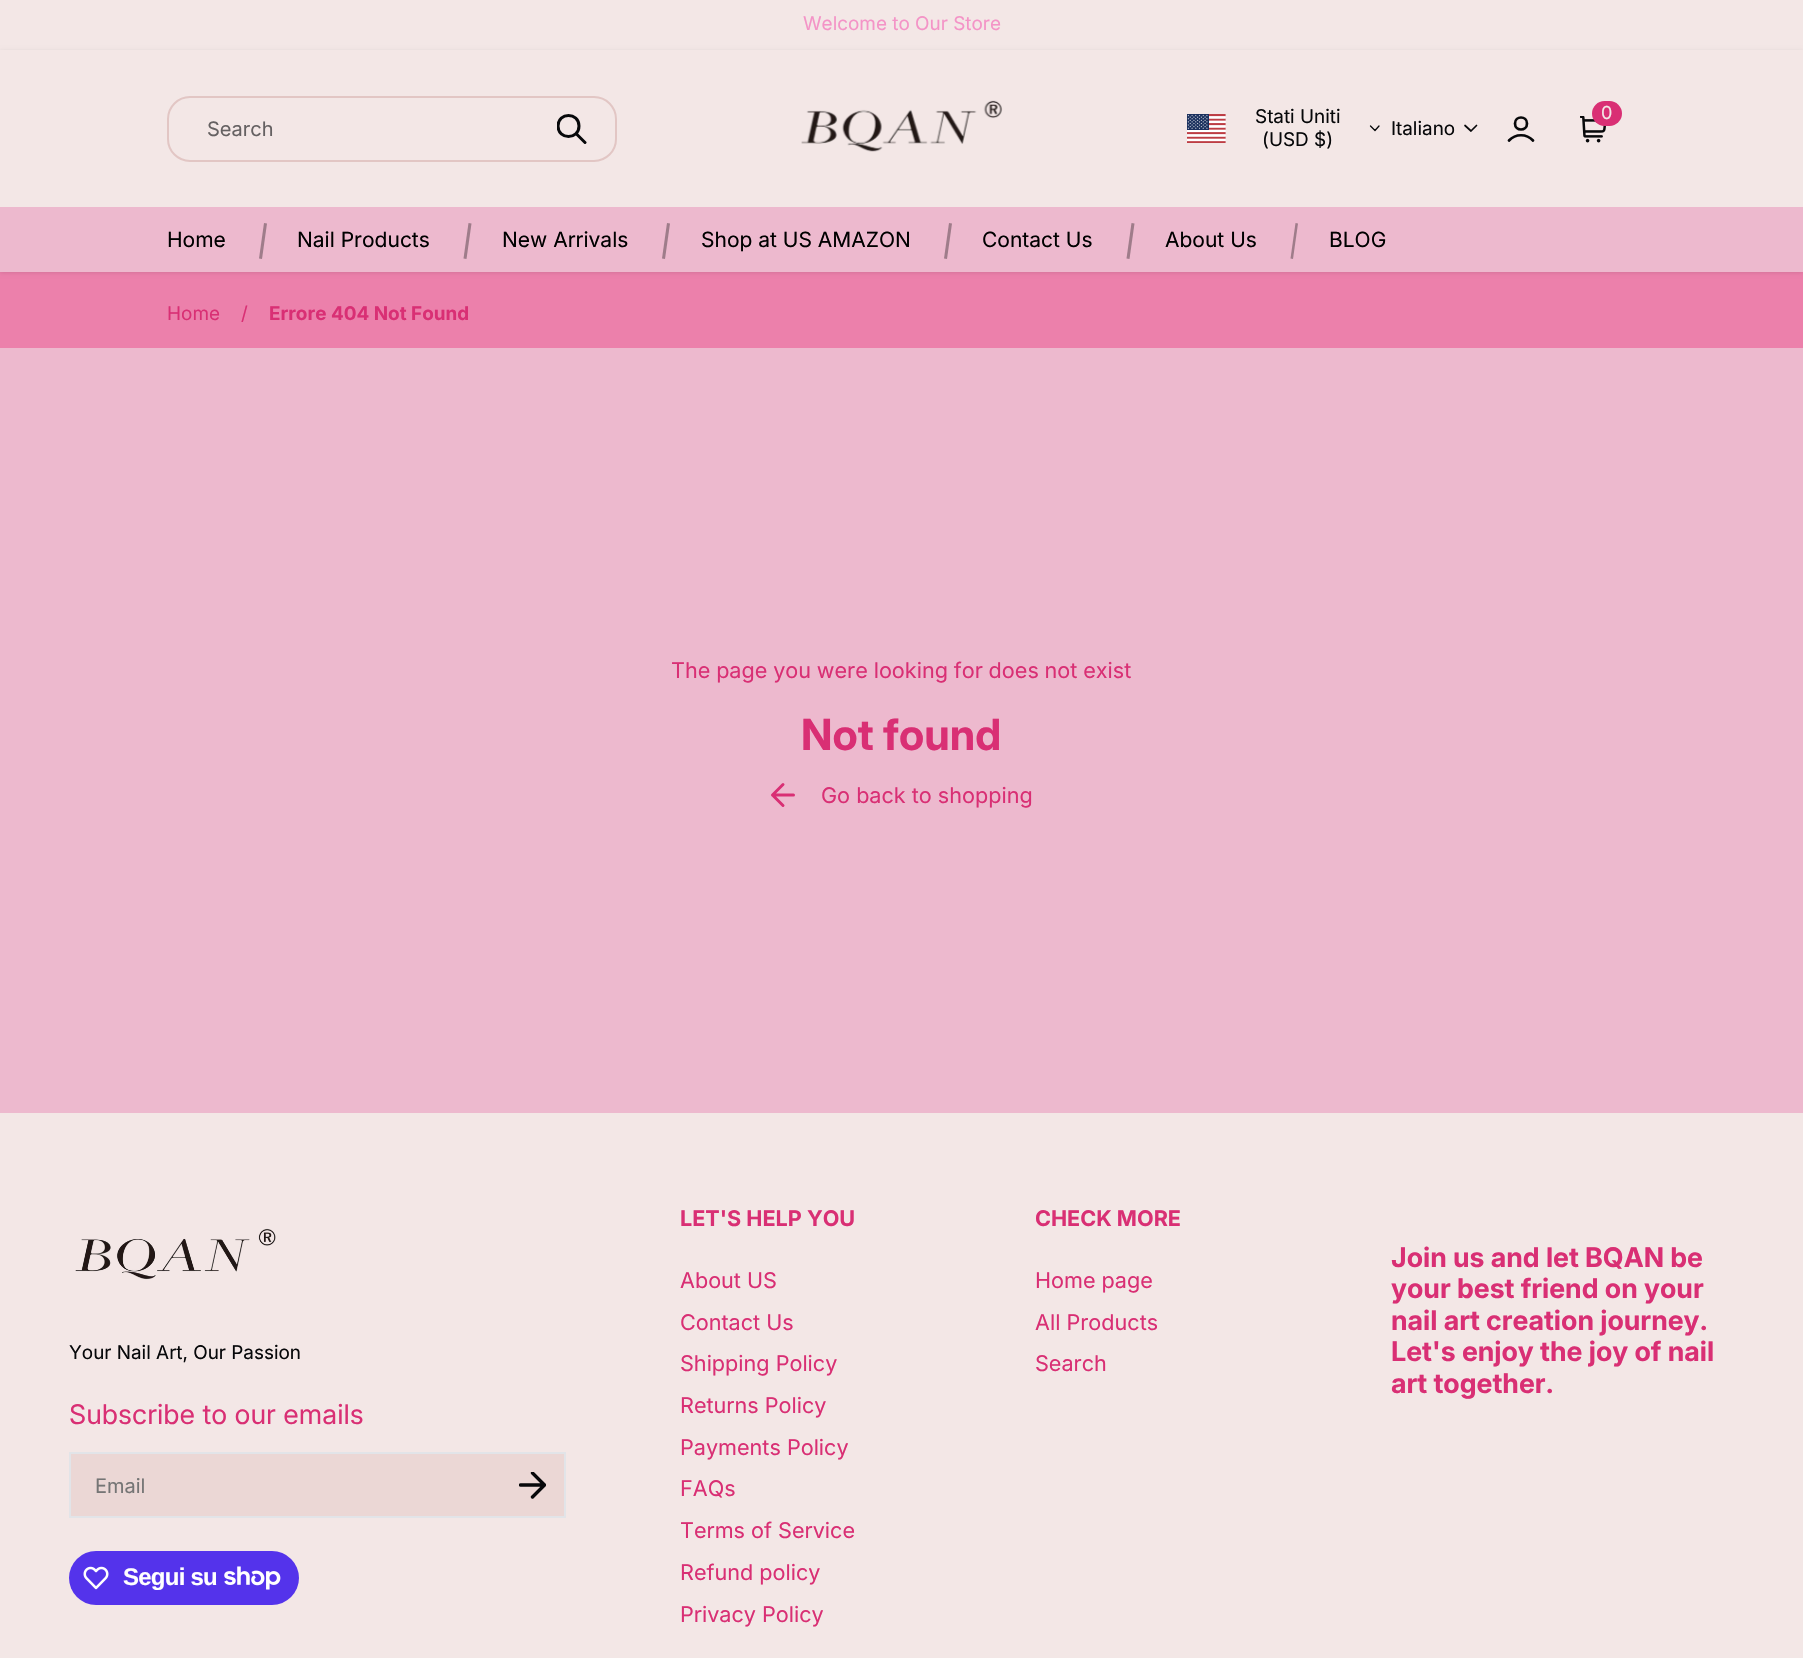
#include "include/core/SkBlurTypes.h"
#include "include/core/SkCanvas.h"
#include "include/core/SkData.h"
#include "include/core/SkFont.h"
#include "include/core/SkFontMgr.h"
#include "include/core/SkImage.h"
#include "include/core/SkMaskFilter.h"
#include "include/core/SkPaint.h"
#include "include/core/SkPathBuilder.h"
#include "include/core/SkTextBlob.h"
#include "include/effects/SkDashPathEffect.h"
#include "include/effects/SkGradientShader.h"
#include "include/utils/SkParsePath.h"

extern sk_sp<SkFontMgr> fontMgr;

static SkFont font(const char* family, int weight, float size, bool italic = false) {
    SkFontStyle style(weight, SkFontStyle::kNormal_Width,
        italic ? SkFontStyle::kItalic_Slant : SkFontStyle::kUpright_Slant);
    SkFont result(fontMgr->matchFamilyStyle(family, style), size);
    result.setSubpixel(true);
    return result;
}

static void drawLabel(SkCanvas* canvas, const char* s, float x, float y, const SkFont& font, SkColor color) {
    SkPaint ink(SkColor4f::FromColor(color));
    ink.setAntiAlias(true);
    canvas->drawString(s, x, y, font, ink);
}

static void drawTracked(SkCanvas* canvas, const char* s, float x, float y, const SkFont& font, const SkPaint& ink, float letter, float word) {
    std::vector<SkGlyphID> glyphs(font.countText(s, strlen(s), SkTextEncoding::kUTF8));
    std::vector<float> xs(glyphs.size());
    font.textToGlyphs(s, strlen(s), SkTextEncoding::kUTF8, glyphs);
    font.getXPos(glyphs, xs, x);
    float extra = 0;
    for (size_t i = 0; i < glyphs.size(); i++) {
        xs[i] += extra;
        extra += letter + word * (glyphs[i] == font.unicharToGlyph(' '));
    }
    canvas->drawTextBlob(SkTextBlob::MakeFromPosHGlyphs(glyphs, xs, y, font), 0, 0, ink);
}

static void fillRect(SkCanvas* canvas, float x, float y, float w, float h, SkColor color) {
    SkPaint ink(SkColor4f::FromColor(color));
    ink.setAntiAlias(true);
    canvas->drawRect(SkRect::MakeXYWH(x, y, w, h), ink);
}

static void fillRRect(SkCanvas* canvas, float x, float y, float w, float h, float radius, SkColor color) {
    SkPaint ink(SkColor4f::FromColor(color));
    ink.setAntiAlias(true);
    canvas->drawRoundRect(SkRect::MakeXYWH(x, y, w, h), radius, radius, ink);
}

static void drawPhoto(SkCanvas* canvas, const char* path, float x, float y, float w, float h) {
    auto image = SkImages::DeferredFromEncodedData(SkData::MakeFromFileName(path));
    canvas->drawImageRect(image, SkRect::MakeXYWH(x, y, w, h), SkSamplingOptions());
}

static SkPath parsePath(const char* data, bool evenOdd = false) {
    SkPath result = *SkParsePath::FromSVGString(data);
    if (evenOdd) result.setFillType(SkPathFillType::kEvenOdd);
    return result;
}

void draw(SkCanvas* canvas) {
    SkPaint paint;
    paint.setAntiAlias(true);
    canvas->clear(0xFFEDB9CE);
    fillRect(canvas, 0, 0, 1803, 50, 0xFFF3E7E6);
    SkFont font1 = font("Inter", 400, 18.9f);
    drawLabel(canvas, "Welcome to Our Store", 803, 30, font1, 0xFFF394C7);
    fillRect(canvas, 0, 272, 1803, 76, 0xFFEC80AB);
    paint.setColor(0x1A000000);
    paint.setMaskFilter(SkMaskFilter::MakeBlur(kNormal_SkBlurStyle, 2));
    canvas->drawRect(SkRect::MakeXYWH(0, 51, 1803, 222), paint);
    paint.setMaskFilter(nullptr);
    fillRect(canvas, 0, 50, 1803, 157, 0xFFF3E7E6);
    paint.setStroke(true);
    paint.setStrokeWidth(2);
    paint.setColor(0xFFE2C6C4);
    canvas->drawRoundRect(SkRect::MakeXYWH(168, 97, 448, 64), 22, 22, paint);
    SkFont font2 = font("Inter", 400, 20);
    drawLabel(canvas, "Search", 207, 136, font2, 0xFF656162);
    canvas->save();
    canvas->clipRect(SkRect::MakeXYWH(557, 111, 30, 36));
    paint.setStrokeWidth(3);
    paint.setStrokeCap(SkPaint::kRound_Cap);
    paint.setStrokeJoin(SkPaint::kRound_Join);
    paint.setColor(0xFF07080A);
    canvas->drawPath(parsePath("M585 142.5L576 133.5M579 126C579 140 558 140 558 126C558 112 579 112 579 126Z"), paint);
    canvas->restore();
    drawPhoto(canvas, "assets/img1.png", 801, 100, 202, 52);
    drawPhoto(canvas, "assets/img2.png", 1187, 114, 39, 29);
    drawLabel(canvas, "Stati Uniti", 1255, 123, font1, 0xFF07080A);
    drawLabel(canvas, "(USD $)", 1262, 146, font1, 0xFF07080A);
    paint.setStrokeWidth(1.3f);
    canvas->drawPath(parsePath("M1370.5 126L1375 130.5L1379 126"), paint);
    drawLabel(canvas, "Italiano", 1391, 135, font1, 0xFF07080A);
    paint.setStrokeWidth(1.7f);
    canvas->drawPath(parsePath("M1465 125.5L1471 131L1476.5 125.5"), paint);
    paint.setStrokeWidth(2.7f);
    canvas->drawPath(parsePath("M1509 140.5C1515.5 133.5 1526.5 133.5 1533 140.5M1527 123.5C1527 131.5 1515 131.5 1515 123.5C1515 115.5 1527 115.5 1527 123.5Z"), paint);
    drawPhoto(canvas, "assets/img3.png", 1580, 116, 26, 27);
    fillRRect(canvas, 1592, 101, 30, 25, 12.5f, 0xFFD92F74);
    SkFont font3 = font("Inter", 400, 18);
    drawLabel(canvas, "0", 1601, 119, font3, 0xFFF3E7E6);
    fillRect(canvas, 0, 207, 1803, 65, 0xFFEDB9CE);
    SkFont font4 = font("Inter", 400, 21);
    drawLabel(canvas, "Home", 167, 247, font4, 0xFF000000);
    paint.setStroke(false);
    paint.setColor(0xFF9F7C8A);
    canvas->drawPath(parsePath("M264 223L267 223.5L262 259L259 258.5Z"), paint);
    drawLabel(canvas, "Nail Products", 297, 247, font4, 0xFF000000);
    canvas->drawPath(parsePath("M468.5 223L471.5 223.5L466.5 259L463.5 258.5Z"), paint);
    drawLabel(canvas, "New Arrivals", 502, 247, font4, 0xFF000000);
    canvas->drawPath(parsePath("M667 223L670 223.5L665 259L662 258.5Z"), paint);
    drawLabel(canvas, "Shop at US AMAZON", 701, 247, font4, 0xFF000000);
    canvas->drawPath(parsePath("M949 223L952 223.5L947 259L944 258.5Z"), paint);
    drawLabel(canvas, "Contact Us", 982, 247, font4, 0xFF000000);
    canvas->drawPath(parsePath("M1131.5 223L1134.5 223.5L1129.5 259L1126.5 258.5Z"), paint);
    drawLabel(canvas, "About Us", 1165, 247, font4, 0xFF000000);
    canvas->drawPath(parsePath("M1295.5 223L1298 223.5L1293 259L1290.5 258.5Z"), paint);
    drawLabel(canvas, "BLOG", 1329, 247, font4, 0xFF000000);
    drawLabel(canvas, "Home", 167, 320, font1, 0xFFD92F74);
    drawLabel(canvas, "/", 241, 320, font1, 0xFFD92F74);
    SkFont font5 = font("Inter", 700, 18.9f);
    drawLabel(canvas, "Errore 404 Not Found", 269, 320, font5, 0xFFD92F74);
    SkFont font6 = font("Inter", 400, 21.6f);
    paint.setColor(0xFFD92F74);
    drawTracked(canvas, "The page you were looking for does not exist", 671, 678, font6, paint, 0, -0.25f);
    SkFont font7 = font("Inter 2", 700, 43);
    drawLabel(canvas, "Not found", 801, 750, font7, 0xFFD92F74);
    paint.setStroke(true);
    paint.setStrokeWidth(3);
    canvas->drawPath(parsePath("M793.5 795H772.5M772.5 795L783 805.5M772.5 795L783 784.5"), paint);
    drawLabel(canvas, "Go back to shopping", 821, 803, font6, 0xFFD92F74);
    fillRect(canvas, 0, 1113, 1803, 545, 0xFFF3E7E6);
    drawPhoto(canvas, "assets/img4.png", 75, 1228, 201, 52);
    drawLabel(canvas, "Your Nail Art, Our Passion", 69, 1359, font1, 0xFF07080A);
    SkFont font8 = font("Inter 2", 400, 27);
    drawLabel(canvas, "Subscribe to our emails", 69, 1424, font8, 0xFFD92F74);
    paint.setStroke(false);
    paint.setColor(0xFFEBD7D5);
    canvas->drawRect(SkRect::MakeXYWH(70, 1453, 495, 64), paint);
    paint.setStroke(true);
    paint.setStrokeWidth(2);
    paint.setStrokeCap(SkPaint::kButt_Cap);
    paint.setStrokeJoin(SkPaint::kMiter_Join);
    paint.setColor(0xFFE2E4E8);
    canvas->drawRect(SkRect::MakeXYWH(70, 1453, 495, 64), paint);
    drawLabel(canvas, "Email", 95, 1493, font2, 0xFF757575);
    canvas->save();
    canvas->clipRect(SkRect::MakeXYWH(519, 1472, 27, 27));
    paint.setStrokeWidth(3.4f);
    paint.setStrokeCap(SkPaint::kRound_Cap);
    paint.setStrokeJoin(SkPaint::kRound_Join);
    paint.setColor(0xFF07080A);
    canvas->drawPath(parsePath("M520.5 1485H544.5M544.5 1485L532.5 1473M544.5 1485L532.5 1497"), paint);
    canvas->restore();
    fillRRect(canvas, 69, 1551, 230, 54, 27, 0xFF5433EB);
    drawPhoto(canvas, "assets/img5.png", 83, 1566, 26, 24);
    SkFont font9 = font("Liberation Sans", 700, 24);
    paint.setStroke(false);
    paint.setColor(0xFFFFFFFF);
    drawTracked(canvas, "Segui su", 123, 1585, font9, paint, -0.75f, 0);
    drawPhoto(canvas, "assets/img6.png", 224, 1566, 57, 24);
    SkFont font10 = font("Inter", 700, 21.6f);
    drawLabel(canvas, "LET'S HELP YOU", 680, 1226, font10, 0xFFD92F74);
    drawLabel(canvas, "About US", 680, 1288, font6, 0xFFD92F74);
    drawLabel(canvas, "Contact Us", 680, 1330, font6, 0xFFD92F74);
    drawLabel(canvas, "Shipping Policy", 680, 1371, font6, 0xFFD92F74);
    drawLabel(canvas, "Returns Policy", 680, 1413, font6, 0xFFD92F74);
    drawLabel(canvas, "Payments Policy", 680, 1455, font6, 0xFFD92F74);
    drawLabel(canvas, "FAQs", 680, 1496, font6, 0xFFD92F74);
    drawLabel(canvas, "Terms of Service", 680, 1538, font6, 0xFFD92F74);
    drawLabel(canvas, "Refund policy", 680, 1580, font6, 0xFFD92F74);
    drawLabel(canvas, "Privacy Policy", 680, 1622, font6, 0xFFD92F74);
    drawLabel(canvas, "CHECK MORE", 1035, 1226, font10, 0xFFD92F74);
    drawLabel(canvas, "Home page", 1035, 1288, font6, 0xFFD92F74);
    drawLabel(canvas, "All Products", 1035, 1330, font6, 0xFFD92F74);
    drawLabel(canvas, "Search", 1035, 1371, font6, 0xFFD92F74);
    SkFont font11 = font("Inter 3", 700, 27);
    drawLabel(canvas, "Join us and let BQAN be", 1391, 1267, font11, 0xFFD92F74);
    drawLabel(canvas, "your best friend on your", 1391, 1298, font11, 0xFFD92F74);
    drawLabel(canvas, "nail art creation journey.", 1391, 1330, font11, 0xFFD92F74);
    drawLabel(canvas, "Let's enjoy the joy of nail", 1391, 1361, font11, 0xFFD92F74);
    drawLabel(canvas, "art together.", 1391, 1393, font11, 0xFFD92F74);
}
